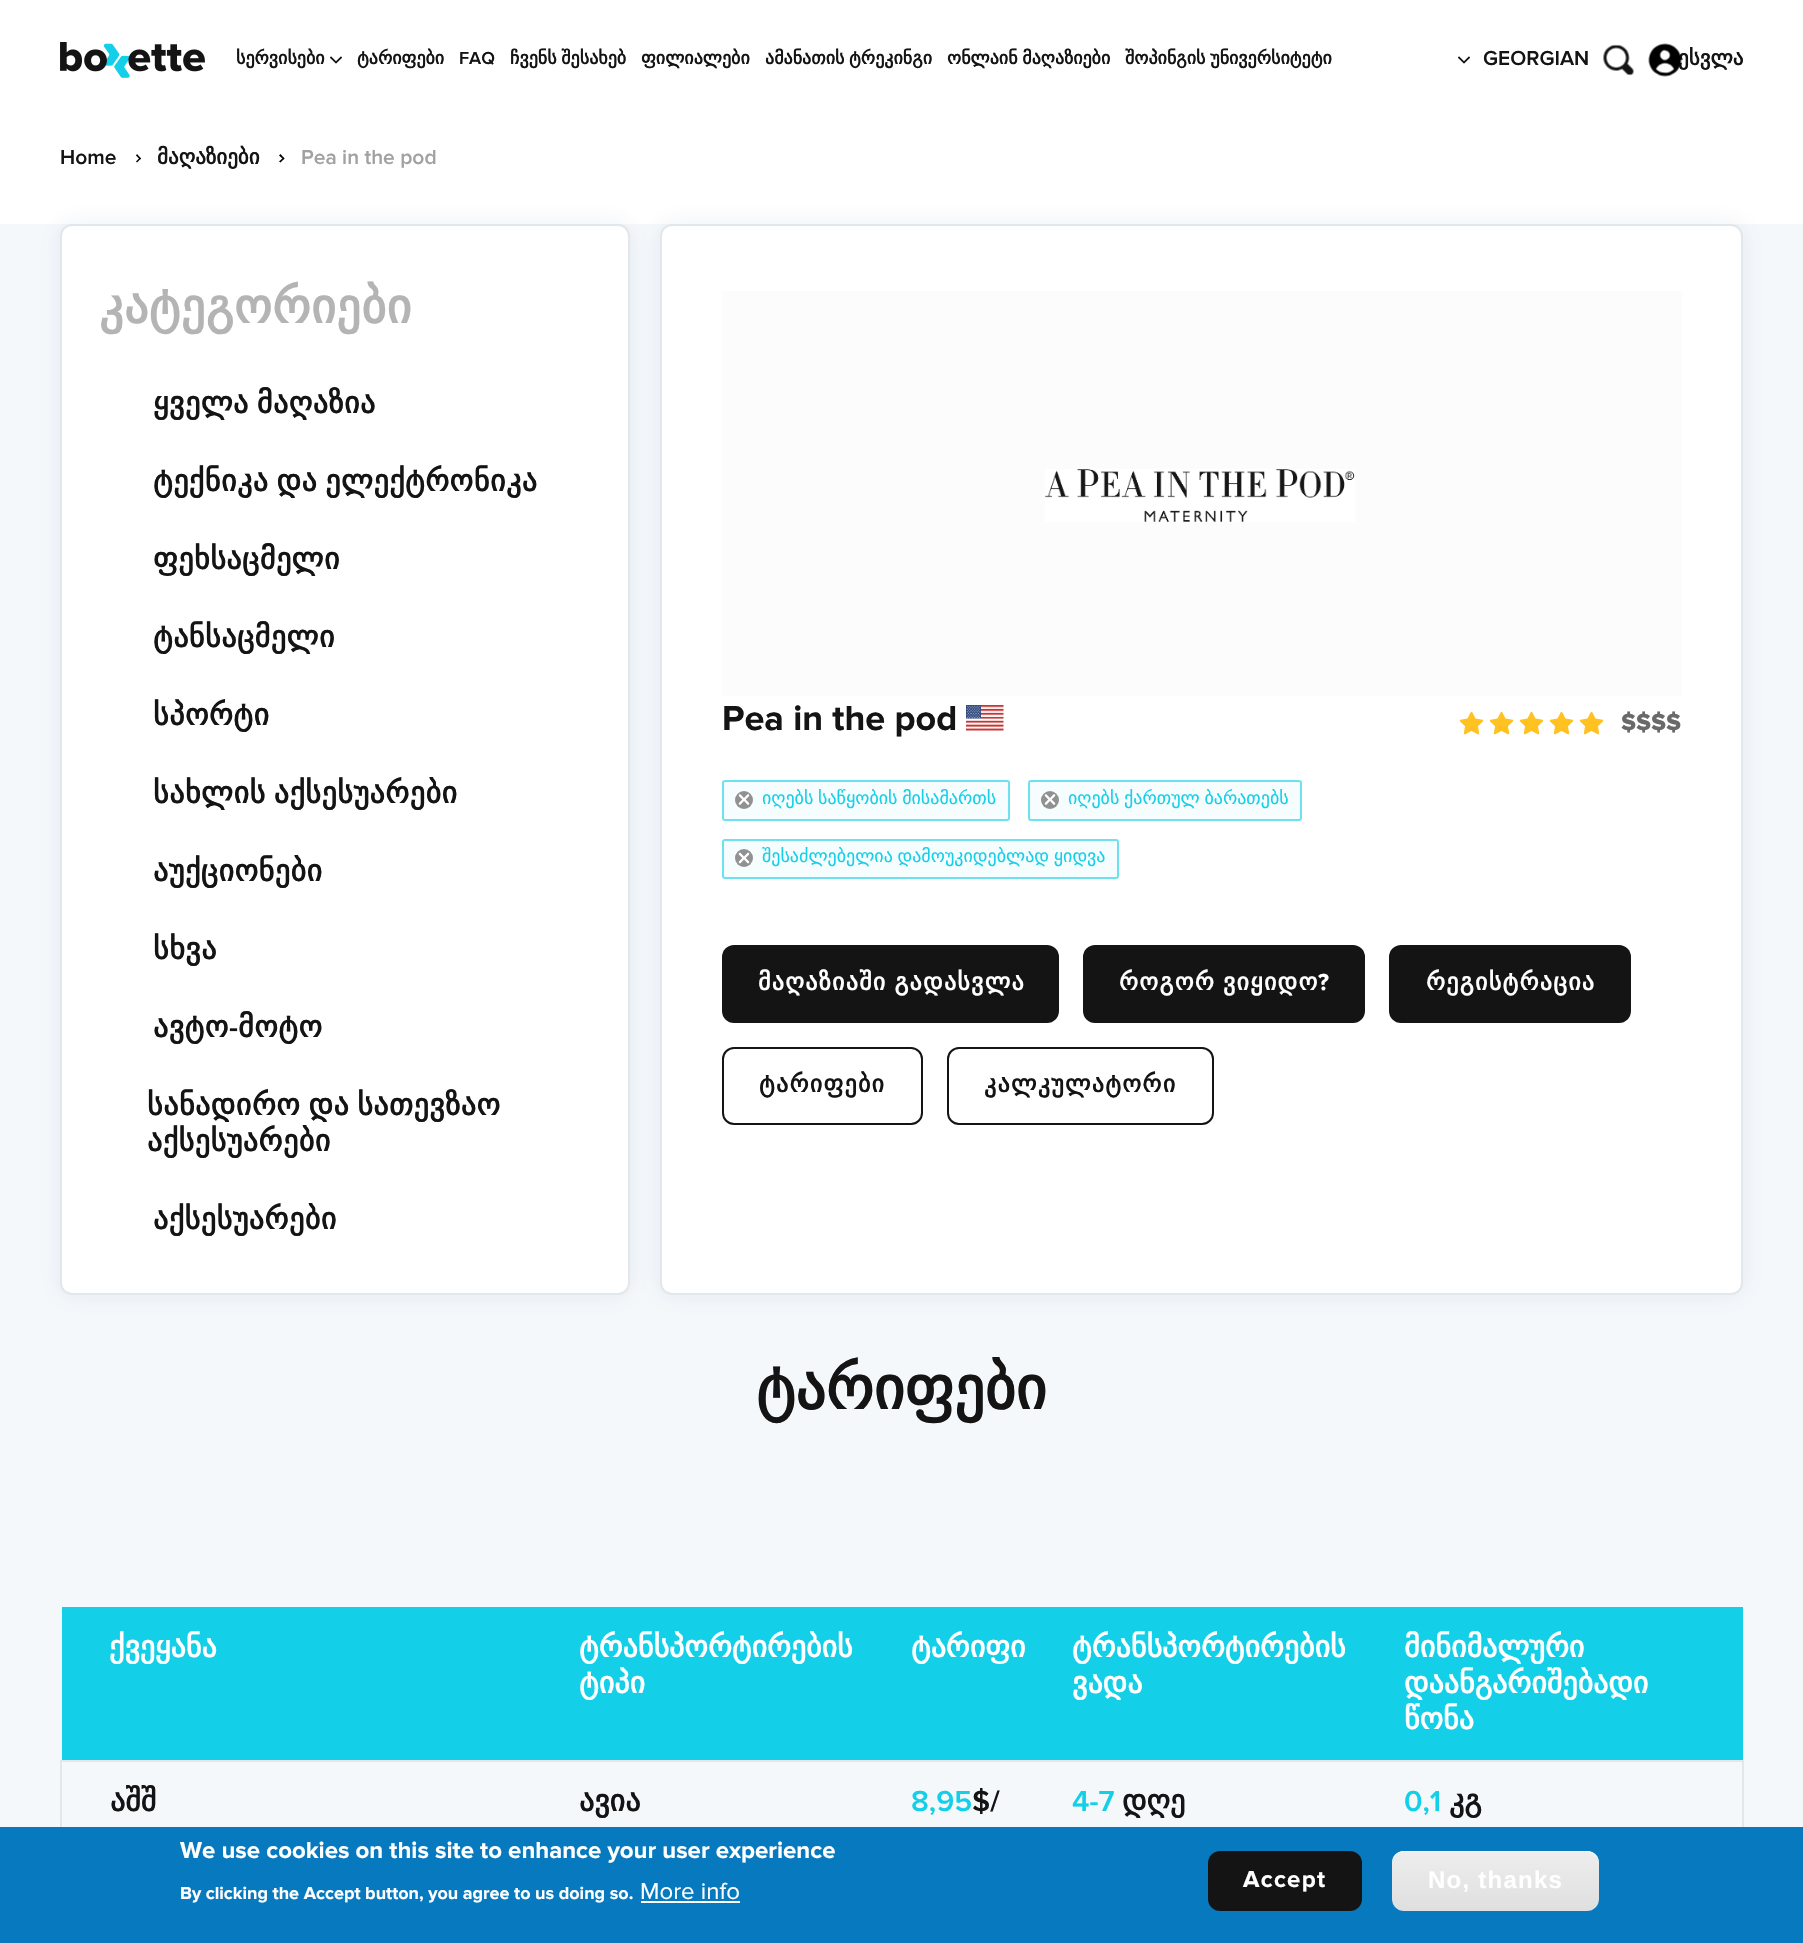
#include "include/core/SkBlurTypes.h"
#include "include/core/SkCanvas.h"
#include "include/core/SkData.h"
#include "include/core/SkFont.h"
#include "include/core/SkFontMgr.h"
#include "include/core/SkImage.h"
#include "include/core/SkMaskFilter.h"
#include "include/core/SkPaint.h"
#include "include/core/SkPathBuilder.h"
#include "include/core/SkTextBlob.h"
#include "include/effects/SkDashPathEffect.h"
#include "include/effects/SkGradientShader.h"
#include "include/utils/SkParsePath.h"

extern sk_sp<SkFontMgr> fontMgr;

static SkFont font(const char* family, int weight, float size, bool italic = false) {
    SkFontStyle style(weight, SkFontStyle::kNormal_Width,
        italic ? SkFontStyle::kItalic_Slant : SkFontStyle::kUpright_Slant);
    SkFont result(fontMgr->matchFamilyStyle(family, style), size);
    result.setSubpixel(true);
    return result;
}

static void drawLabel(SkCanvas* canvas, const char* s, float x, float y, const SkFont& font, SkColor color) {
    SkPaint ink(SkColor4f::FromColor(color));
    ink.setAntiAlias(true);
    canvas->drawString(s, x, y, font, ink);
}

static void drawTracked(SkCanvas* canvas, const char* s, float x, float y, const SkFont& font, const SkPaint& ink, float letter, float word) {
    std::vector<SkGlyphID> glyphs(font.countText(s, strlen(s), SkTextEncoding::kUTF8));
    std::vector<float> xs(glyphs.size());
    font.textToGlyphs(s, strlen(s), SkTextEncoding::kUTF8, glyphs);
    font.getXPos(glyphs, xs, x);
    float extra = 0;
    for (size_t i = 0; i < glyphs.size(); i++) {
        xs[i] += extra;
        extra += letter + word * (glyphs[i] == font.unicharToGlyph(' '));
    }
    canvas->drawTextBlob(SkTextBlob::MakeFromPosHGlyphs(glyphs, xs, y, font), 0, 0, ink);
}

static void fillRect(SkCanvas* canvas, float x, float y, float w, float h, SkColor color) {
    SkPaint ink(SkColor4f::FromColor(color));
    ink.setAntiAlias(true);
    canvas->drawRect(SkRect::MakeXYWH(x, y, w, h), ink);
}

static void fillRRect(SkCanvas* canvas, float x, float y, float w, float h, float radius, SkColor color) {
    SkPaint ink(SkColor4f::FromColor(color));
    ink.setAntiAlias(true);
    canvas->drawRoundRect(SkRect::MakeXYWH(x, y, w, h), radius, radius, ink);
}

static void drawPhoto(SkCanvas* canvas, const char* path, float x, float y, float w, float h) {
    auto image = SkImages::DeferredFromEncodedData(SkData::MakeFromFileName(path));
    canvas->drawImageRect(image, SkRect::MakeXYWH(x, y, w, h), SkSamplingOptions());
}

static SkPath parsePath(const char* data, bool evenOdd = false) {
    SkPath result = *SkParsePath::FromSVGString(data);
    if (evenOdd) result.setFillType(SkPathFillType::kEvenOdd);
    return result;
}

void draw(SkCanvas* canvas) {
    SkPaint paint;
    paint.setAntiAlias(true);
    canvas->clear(0xFFFFFFFF);
    drawPhoto(canvas, "assets/img1.png", 60, 42, 145, 36);
    SkFont font1 = font("DejaVu Sans", 700, 18);
    drawLabel(canvas, "სერვისები", 236, 64, font1, 0xFF141414);
    drawPhoto(canvas, "assets/img2.png", 330, 56, 12, 8);
    drawLabel(canvas, "ტარიფები", 357, 64, font1, 0xFF141414);
    SkFont font2 = font("Proxima Nova", 600, 18);
    drawLabel(canvas, "FAQ", 459, 64, font2, 0xFF141414);
    paint.setColor(0xFF141414);
    drawTracked(canvas, "ჩვენს შესახებ", 510, 64, font1, paint, 0, -1);
    drawLabel(canvas, "ფილიალები", 641, 64, font1, 0xFF141414);
    drawTracked(canvas, "ამანათის ტრეკინგი", 765, 64, font1, paint, 0, -1);
    drawTracked(canvas, "ონლაინ მაღაზიები", 947, 64, font1, paint, 0, -1);
    drawTracked(canvas, "შოპინგის უნივერსიტეტი", 1125, 64, font1, paint, 0, -1);
    drawPhoto(canvas, "assets/img2.png", 1458, 56, 12, 8);
    SkFont font3 = font("Proxima Nova", 600, 21);
    drawLabel(canvas, "GEORGIAN", 1483, 65, font3, 0xFF141414);
    drawPhoto(canvas, "assets/img3.png", 1603, 44, 31, 32);
    SkFont font4 = font("DejaVu Sans", 700, 21);
    drawLabel(canvas, "ესვლა", 1678, 65, font4, 0xFF141414);
    drawPhoto(canvas, "assets/img4.png", 1648, 43, 34, 34);
    drawLabel(canvas, "Home", 60, 164, font3, 0xFF141414);
    paint.setColor(0xFF000000);
    canvas->drawPath(parsePath("M136 155.5L137 154L141 158.5L140 159.5Z"), paint);
    canvas->drawPath(parsePath("M136 161.5L140 157.5L141 158.5L137 162.5Z"), paint);
    drawLabel(canvas, "მაღაზიები", 157, 164, font4, 0xFF141414);
    canvas->drawPath(parsePath("M279 155.5L280.5 154L284.5 158.5L283.5 159.5Z"), paint);
    canvas->drawPath(parsePath("M279 161.5L283.5 157.5L284.5 158.5L280.5 162.5Z"), paint);
    drawLabel(canvas, "Pea in the pod", 301, 164, font3, 0xFFA1A1A1);
    fillRect(canvas, 0, 224, 1803, 1603, 0xFFF5F8FB);
    paint.setColor(0x14084680);
    paint.setMaskFilter(SkMaskFilter::MakeBlur(kNormal_SkBlurStyle, 12));
    canvas->drawRoundRect(SkRect::MakeXYWH(60, 224, 570, 1071), 12, 12, paint);
    paint.setMaskFilter(nullptr);
    paint.setColor(0xFFFFFFFF);
    canvas->drawRoundRect(SkRect::MakeXYWH(61, 225, 568, 1069), 11, 11, paint);
    paint.setStroke(true);
    paint.setStrokeWidth(2);
    paint.setColor(0xFFE2E7EC);
    canvas->drawRoundRect(SkRect::MakeXYWH(61, 225, 568, 1069), 11, 11, paint);
    SkFont font5 = font("DejaVu Sans", 700, 48);
    paint.setStroke(false);
    paint.setColor(0xFFB4B4B4);
    drawTracked(canvas, "კატეგორიები", 99, 323, font5, paint, 0.5f, 0);
    SkFont font6 = font("DejaVu Sans", 700, 30);
    paint.setColor(0xFF141414);
    drawTracked(canvas, "ყველა მაღაზია", 153, 413, font6, paint, 0.5f, -2);
    drawTracked(canvas, "ტექნიკა და ელექტრონიკა", 153, 491, font6, paint, 0.5f, -2);
    drawTracked(canvas, "ფეხსაცმელი", 153, 569, font6, paint, 0.5f, 0);
    drawTracked(canvas, "ტანსაცმელი", 153, 647, font6, paint, 0.5f, 0);
    drawTracked(canvas, "სპორტი", 153, 725, font6, paint, 0.5f, 0);
    drawTracked(canvas, "სახლის აქსესუარები", 153, 803, font6, paint, 0.5f, -2);
    drawTracked(canvas, "აუქციონები", 153, 881, font6, paint, 0.5f, 0);
    drawTracked(canvas, "სხვა", 153, 959, font6, paint, 0.5f, 0);
    drawTracked(canvas, "ავტო", 153, 1037, font6, paint, 0.5f, 0);
    SkFont font7 = font("Proxima Nova", 600, 30);
    drawTracked(canvas, "-", 229, 1037, font7, paint, 0.5f, 0);
    drawTracked(canvas, "მოტო", 238, 1037, font6, paint, 0.5f, 0);
    drawTracked(canvas, "სანადირო და სათევზაო", 147, 1115, font6, paint, 0.5f, -2);
    drawTracked(canvas, "აქსესუარები", 147, 1151, font6, paint, 0.5f, 0);
    drawTracked(canvas, "აქსესუარები", 153, 1229, font6, paint, 0.5f, 0);
    paint.setColor(0x14084680);
    paint.setMaskFilter(SkMaskFilter::MakeBlur(kNormal_SkBlurStyle, 12));
    canvas->drawRoundRect(SkRect::MakeXYWH(660, 224, 1083, 1071), 12, 12, paint);
    paint.setMaskFilter(nullptr);
    paint.setColor(0xFFFFFFFF);
    canvas->drawRoundRect(SkRect::MakeXYWH(661, 225, 1081, 1069), 11, 11, paint);
    paint.setStroke(true);
    paint.setColor(0xFFE2E7EC);
    canvas->drawRoundRect(SkRect::MakeXYWH(661, 225, 1081, 1069), 11, 11, paint);
    fillRect(canvas, 722, 291, 960, 405, 0xFFFCFCFC);
    drawPhoto(canvas, "assets/img5.png", 1045, 469, 310, 53);
    SkFont font8 = font("Proxima Nova", 700, 36);
    drawLabel(canvas, "Pea in the pod", 722, 730, font8, 0xFF141414);
    drawPhoto(canvas, "assets/img6.png", 966, 705, 38, 26);
    drawPhoto(canvas, "assets/img7.png", 1459, 711, 25, 24);
    drawPhoto(canvas, "assets/img7.png", 1489, 711, 25, 24);
    drawPhoto(canvas, "assets/img8.png", 1519, 711, 25, 24);
    drawPhoto(canvas, "assets/img7.png", 1549, 711, 25, 24);
    drawPhoto(canvas, "assets/img7.png", 1579, 711, 25, 24);
    SkFont font9 = font("Proxima Nova", 800, 24);
    drawLabel(canvas, "$$$$", 1621, 730, font9, 0xFF696969);
    fillRRect(canvas, 722, 780, 288, 41, 3, 0xFFF6FDFE);
    paint.setColor(0x9913CFE8);
    canvas->drawRoundRect(SkRect::MakeXYWH(723, 781, 286, 39), 2, 2, paint);
    paint.setStroke(false);
    paint.setColor(0xFF919191);
    canvas->drawCircle(744, 800, 9, paint);
    drawPhoto(canvas, "assets/img9.png", 738, 794, 12, 11);
    SkFont font10 = font("DejaVu Sans", 400, 18);
    paint.setColor(0xFF13CFE8);
    drawTracked(canvas, "იღებს საწყობის მისამართს", 762, 804, font10, paint, 0, -1);
    fillRRect(canvas, 1028, 780, 274, 41, 3, 0xFFF6FDFE);
    paint.setStroke(true);
    paint.setColor(0x9913CFE8);
    canvas->drawRoundRect(SkRect::MakeXYWH(1029, 781, 272, 39), 2, 2, paint);
    paint.setStroke(false);
    paint.setColor(0xFF919191);
    canvas->drawCircle(1050, 800, 9, paint);
    drawPhoto(canvas, "assets/img10.png", 1044, 794, 12, 11);
    paint.setColor(0xFF13CFE8);
    drawTracked(canvas, "იღებს ქართულ ბარათებს", 1068, 804, font10, paint, 0, -1);
    fillRRect(canvas, 722, 839, 397, 40, 3, 0xFFF6FDFE);
    paint.setStroke(true);
    paint.setColor(0x9913CFE8);
    canvas->drawRoundRect(SkRect::MakeXYWH(723, 840, 395, 38), 2, 2, paint);
    paint.setStroke(false);
    paint.setColor(0xFF919191);
    canvas->drawCircle(744, 858, 9, paint);
    drawPhoto(canvas, "assets/img11.png", 738, 852, 12, 12);
    paint.setColor(0xFF13CFE8);
    drawTracked(canvas, "შესაძლებელია დამოუკიდებლად ყიდვა", 762, 862, font10, paint, 0, -1);
    fillRRect(canvas, 722, 945, 337, 78, 12, 0xFF141414);
    SkFont font11 = font("DejaVu Sans", 700, 24);
    paint.setColor(0xFFFFFFFF);
    drawTracked(canvas, "მაღაზიაში გადასვლა", 758, 990, font11, paint, 1.25f, -1);
    fillRRect(canvas, 1083, 945, 282, 78, 12, 0xFF141414);
    drawTracked(canvas, "როგორ ვიყიდო", 1119, 990, font11, paint, 1.25f, -1);
    SkFont font12 = font("Proxima Nova", 700, 24);
    drawTracked(canvas, "?", 1318, 990, font12, paint, 1.25f, 0);
    fillRRect(canvas, 1389, 945, 242, 78, 12, 0xFF141414);
    drawTracked(canvas, "რეგისტრაცია", 1426, 990, font11, paint, 1.25f, 0);
    paint.setStroke(true);
    paint.setColor(0xFF141414);
    canvas->drawRoundRect(SkRect::MakeXYWH(723, 1048, 199, 76), 11, 11, paint);
    paint.setStroke(false);
    drawTracked(canvas, "ტარიფები", 759, 1092, font11, paint, 1.25f, 0);
    paint.setStroke(true);
    canvas->drawRoundRect(SkRect::MakeXYWH(948, 1048, 265, 76), 11, 11, paint);
    paint.setStroke(false);
    drawTracked(canvas, "კალკულატორი", 984, 1092, font11, paint, 1.25f, 0);
    SkFont font13 = font("DejaVu Sans", 700, 60);
    drawLabel(canvas, "ტარიფები", 756, 1409, font13, 0xFF141414);
    fillRect(canvas, 62, 1607, 1681, 153, 0xFF13CFE8);
    drawLabel(canvas, "ქვეყანა", 109, 1657, font6, 0xFFFFFFFF);
    drawLabel(canvas, "ტრანსპორტირების", 579, 1657, font6, 0xFFFFFFFF);
    drawLabel(canvas, "ტიპი", 579, 1693, font6, 0xFFFFFFFF);
    drawLabel(canvas, "ტარიფი", 911, 1657, font6, 0xFFFFFFFF);
    drawLabel(canvas, "ტრანსპორტირების", 1072, 1657, font6, 0xFFFFFFFF);
    drawLabel(canvas, "ვადა", 1072, 1693, font6, 0xFFFFFFFF);
    drawLabel(canvas, "მინიმალური", 1404, 1657, font6, 0xFFFFFFFF);
    drawLabel(canvas, "დაანგარიშებადი", 1404, 1693, font6, 0xFFFFFFFF);
    drawLabel(canvas, "წონა", 1404, 1729, font6, 0xFFFFFFFF);
    fillRect(canvas, 60, 1760, 1683, 2, 0xFFE2E7EC);
    fillRect(canvas, 1742, 1760, 2, 67, 0xFFE2E7EC);
    fillRect(canvas, 60, 1760, 2, 67, 0xFFE2E7EC);
    drawLabel(canvas, "აშშ", 110, 1811, font6, 0xFF141414);
    drawLabel(canvas, "ავია", 579, 1811, font6, 0xFF141414);
    drawLabel(canvas, "8,95", 911, 1811, font7, 0xFF13CFE8);
    drawLabel(canvas, "$/", 972, 1811, font7, 0xFF141414);
    drawLabel(canvas, "4-7", 1072, 1811, font7, 0xFF13CFE8);
    drawLabel(canvas, "დღე", 1122, 1811, font6, 0xFF141414);
    drawLabel(canvas, "0,1", 1404, 1811, font7, 0xFF13CFE8);
    drawLabel(canvas, "კგ", 1449, 1811, font6, 0xFF141414);
    fillRect(canvas, 0, 1827, 1803, 116, 0xFF0779BF);
    drawLabel(canvas, "We use cookies on this site to enhance your user experience", 180, 1858, font12, 0xFFFFFFFF);
    SkFont font14 = font("Proxima Nova", 700, 18);
    drawLabel(canvas, "By clicking the Accept button, you agree to us doing so.", 180, 1899, font14, 0xFFFFFFFF);
    SkFont font15 = font("Proxima Nova", 400, 24);
    drawLabel(canvas, "More info", 640, 1899, font15, 0xFFFFFFFF);
    fillRect(canvas, 641, 1901, 99, 2, 0xFFFFFFFF);
    fillRRect(canvas, 1208, 1851, 154, 60, 12, 0xFF141414);
    paint.setColor(0xFFFFFFFF);
    drawTracked(canvas, "Accept", 1243, 1887, font12, paint, 1.25f, 0);
    {
        const SkColor colors[] = {0xFFEDEDED, 0xFFDFDFDF};
        const float stops[] = {0.05f, 1};
        const SkPoint ends[] = {{1496, 1851}, {1496, 1911}};
        paint.setShader(SkGradientShader::MakeLinear(ends, colors, stops, 2, SkTileMode::kClamp));
        paint.setAlpha(255);
    }
    canvas->drawRoundRect(SkRect::MakeXYWH(1392, 1851, 207, 60), 12, 12, paint);
    paint.setShader(nullptr);
    paint.setColor(0xFFFFFFFF);
    canvas->drawPath(parsePath("M1404 1852H1587C1594 1852 1599 1858 1599 1864V1863C1599 1856 1594 1851 1587 1851H1404C1397 1851 1392 1856 1392 1863V1864C1392 1858 1397 1852 1404 1852Z"), paint);
    SkFont font16 = font("Liberation Sans", 700, 24);
    drawTracked(canvas, "No, thanks", 1428, 1888, font16, paint, 1.25f, 0);
}
